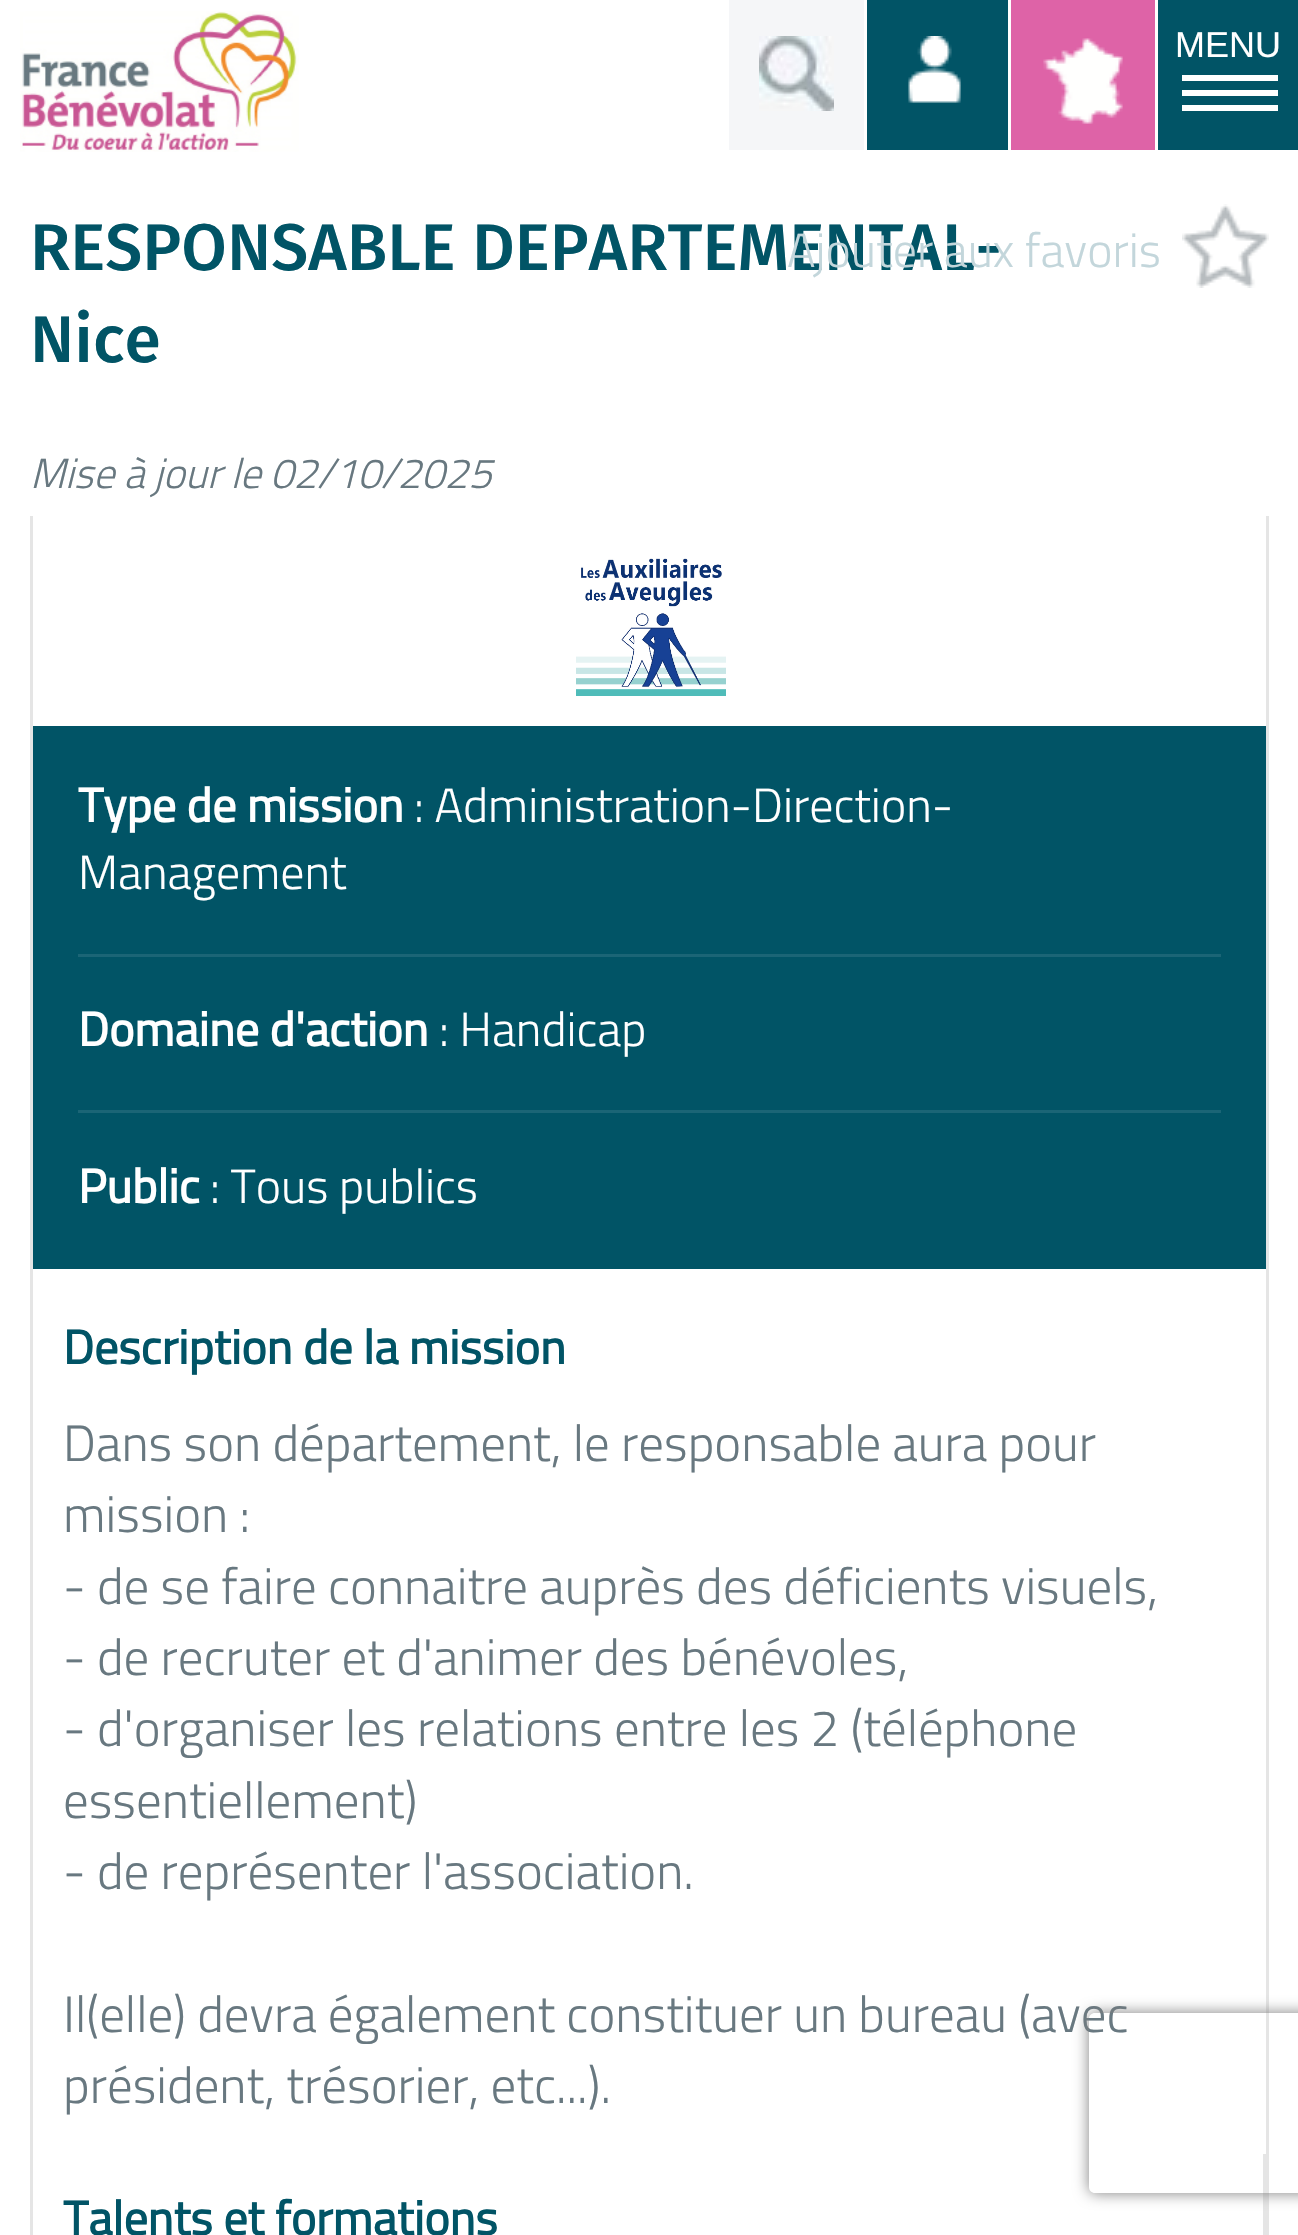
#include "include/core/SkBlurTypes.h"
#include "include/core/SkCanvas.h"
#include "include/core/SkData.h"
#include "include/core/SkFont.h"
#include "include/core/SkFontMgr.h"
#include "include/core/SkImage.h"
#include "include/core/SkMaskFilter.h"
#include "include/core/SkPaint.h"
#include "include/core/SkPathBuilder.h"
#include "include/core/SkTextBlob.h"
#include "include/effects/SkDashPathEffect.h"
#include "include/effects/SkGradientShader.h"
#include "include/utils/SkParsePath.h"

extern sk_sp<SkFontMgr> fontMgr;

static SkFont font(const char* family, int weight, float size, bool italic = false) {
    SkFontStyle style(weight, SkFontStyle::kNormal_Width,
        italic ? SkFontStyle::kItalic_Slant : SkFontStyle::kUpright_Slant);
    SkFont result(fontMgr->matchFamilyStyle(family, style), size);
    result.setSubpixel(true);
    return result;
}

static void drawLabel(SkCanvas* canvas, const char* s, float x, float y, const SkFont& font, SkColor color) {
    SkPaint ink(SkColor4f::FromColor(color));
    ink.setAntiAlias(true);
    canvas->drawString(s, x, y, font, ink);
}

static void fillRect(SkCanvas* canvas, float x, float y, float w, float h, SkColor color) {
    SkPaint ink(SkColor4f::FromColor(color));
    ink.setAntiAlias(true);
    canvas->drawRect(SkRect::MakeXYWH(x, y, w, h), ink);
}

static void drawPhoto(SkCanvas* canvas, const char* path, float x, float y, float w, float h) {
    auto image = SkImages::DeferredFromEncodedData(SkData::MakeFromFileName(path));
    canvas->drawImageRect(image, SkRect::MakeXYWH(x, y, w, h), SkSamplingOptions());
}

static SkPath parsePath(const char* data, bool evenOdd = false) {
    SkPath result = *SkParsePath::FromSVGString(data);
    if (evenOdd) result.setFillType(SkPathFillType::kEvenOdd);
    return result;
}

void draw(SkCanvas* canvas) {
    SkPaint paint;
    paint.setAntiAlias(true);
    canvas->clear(0xFFFFFFFF);
    fillRect(canvas, 1158, 0, 140, 150, 0xFF015466);
    SkFont font1 = font("Liberation Sans", 400, 36);
    drawLabel(canvas, "MENU", 1175, 57, font1, 0xFFFFFFFF);
    fillRect(canvas, 1182, 75, 96, 6, 0xFFFFFFFF);
    fillRect(canvas, 1182, 90, 96, 6, 0xFFFFFFFF);
    fillRect(canvas, 1182, 105, 96, 6, 0xFFFFFFFF);
    drawPhoto(canvas, "assets/img1.png", 20, 11, 279, 141);
    fillRect(canvas, 729, 0, 135, 150, 0xFFF5F6F8);
    drawPhoto(canvas, "assets/img2.png", 759, 36, 75, 75);
    fillRect(canvas, 867, 0, 141, 150, 0xFF015466);
    drawPhoto(canvas, "assets/img3.png", 908, 36, 53, 67);
    fillRect(canvas, 1011, 0, 144, 150, 0xFFDE63A7);
    drawPhoto(canvas, "assets/img4.png", 1043, 38, 80, 86);
    SkFont font2 = font("Fira Sans", 500, 66);
    drawLabel(canvas, "RESPONSABLE DEPARTEMENTAL-", 30, 270, font2, 0xFF015466);
    drawLabel(canvas, "Nice", 30, 362, font2, 0xFF015466);
    drawPhoto(canvas, "assets/img5.png", 1182, 204, 87, 84);
    SkFont font3 = font("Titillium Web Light", 300, 48);
    drawLabel(canvas, "Ajouter aux favoris", 787, 267, font3, 0xFFC3D6DB);
    SkFont font4 = font("Titillium Web Light", 300, 42, true);
    drawLabel(canvas, "Mise à jour le 02/10/2025", 30, 488, font4, 0xFF687880);
    fillRect(canvas, 1266, 516, 3, 1719, 0xFFE5E5E5);
    fillRect(canvas, 30, 516, 3, 1719, 0xFFE5E5E5);
    fillRect(canvas, 33, 726, 1233, 543, 0xFF015466);
    drawPhoto(canvas, "assets/img6.png", 576, 558, 150, 138);
    fillRect(canvas, 78, 954, 1143, 3, 0xFF1B6576);
    SkFont font5 = font("Titillium Web", 700, 48);
    drawLabel(canvas, "Type de mission", 78, 822, font5, 0xFFFFFFFF);
    drawLabel(canvas, ": Administration-Direction-", 414, 822, font3, 0xFFFFFFFF);
    drawLabel(canvas, "Management", 78, 889, font3, 0xFFFFFFFF);
    fillRect(canvas, 78, 1110, 1143, 3, 0xFF1B6576);
    drawLabel(canvas, "Domaine d'action", 78, 1046, font5, 0xFFFFFFFF);
    drawLabel(canvas, ": Handicap", 439, 1046, font3, 0xFFFFFFFF);
    drawLabel(canvas, "Public", 78, 1203, font5, 0xFFFFFFFF);
    drawLabel(canvas, ": Tous publics", 210, 1203, font3, 0xFFFFFFFF);
    drawLabel(canvas, "Description de la mission", 63, 1364, font5, 0xFF015466);
    SkFont font6 = font("Titillium Web Light", 300, 51);
    drawLabel(canvas, "Dans son département, le responsable aura pour", 63, 1461, font6, 0xFF687880);
    drawLabel(canvas, "mission :", 63, 1532, font6, 0xFF687880);
    drawLabel(canvas, "- de se faire connaitre auprès des déficients visuels,", 63, 1604, font6, 0xFF687880);
    drawLabel(canvas, "- de recruter et d'animer des bénévoles,", 63, 1675, font6, 0xFF687880);
    drawLabel(canvas, "- d'organiser les relations entre les 2 (téléphone", 63, 1746, font6, 0xFF687880);
    drawLabel(canvas, "essentiellement)", 63, 1818, font6, 0xFF687880);
    drawLabel(canvas, "- de représenter l'association.", 63, 1889, font6, 0xFF687880);
    drawLabel(canvas, "Il(elle) devra également constituer un bureau (avec", 63, 2032, font6, 0xFF687880);
    drawLabel(canvas, "président, trésorier, etc...).", 63, 2103, font6, 0xFF687880);
    fillRect(canvas, 1263, 2154, 3, 81, 0xFFE5E5E5);
    drawLabel(canvas, "Talents et formations", 63, 2235, font5, 0xFF015466);
    canvas->save();
    canvas->clipPath(parsePath("M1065 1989H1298V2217H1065ZM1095 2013H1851C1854.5 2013 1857 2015.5 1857 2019V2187C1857 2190.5 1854.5 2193 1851 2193H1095C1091.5 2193 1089 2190.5 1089 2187V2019C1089 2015.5 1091.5 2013 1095 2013Z", true), true);
    paint.setColor(0xFF808080);
    paint.setMaskFilter(SkMaskFilter::MakeBlur(kNormal_SkBlurStyle, 7.5f));
    canvas->drawRoundRect(SkRect::MakeXYWH(1089, 2013, 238, 180), 6, 6, paint);
    paint.setMaskFilter(nullptr);
    canvas->restore();
}
